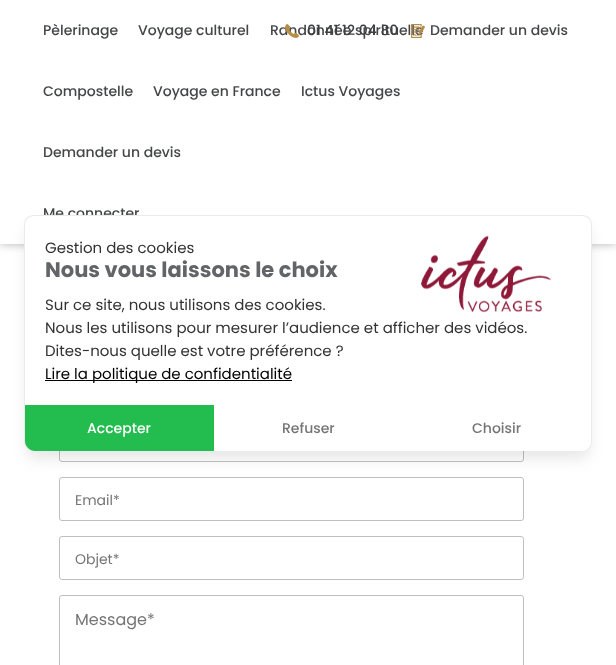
<svg xmlns="http://www.w3.org/2000/svg" width="616" height="665" viewBox="0 0 616 665">
  <rect width="100%" height="100%" fill="#fff"/>
  <path d="M0 0h616v244H0z" fill="#0000004d" filter="blur(5px)"/>
  <path d="M0 0h616v244H0z" fill="#fff"/>
  <rect x="59.5" y="418.5" width="464" height="43" rx="2.5" fill="none" stroke="#bdbfc1"/>
  <rect x="59.5" y="477.5" width="464" height="43" rx="2.5" fill="none" stroke="#bdbfc1"/>
  <rect x="27" y="228" width="562" height="230" rx="7" fill="#0000001a" filter="blur(7.5px)"/>
  <rect x="59.5" y="536.5" width="464" height="43" rx="2.5" fill="none" stroke="#bdbfc1"/>
  <rect x="59.5" y="595.5" width="464" height="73" rx="2.5" fill="none" stroke="#bdbfc1"/>
  <g font-family="Poppins" font-size="14" font-weight="500" fill="#444647">
    <text x="43" y="35">Pèlerinage</text>
    <text x="138" y="35">Voyage culturel</text>
    <text x="270" y="35">Randonnée spirituelle</text>
    <text x="43" y="96">Compostelle</text>
    <text x="153" y="96">Voyage en France</text>
    <text x="301" y="96">Ictus Voyages</text>
    <text x="43" y="157">Demander un devis</text>
    <text x="43" y="218">Me connecter</text>
  </g>
  <image x="285" y="24" width="14" height="14" href="img/1.png"/>
  <text x="307" y="35" font-family="Poppins" font-size="14" font-weight="500" fill="#3d3f41">01 41 12 04 80</text>
  <image x="411" y="24" width="14" height="14" href="img/2.png"/>
  <text x="430" y="35" font-family="Poppins" font-size="14" font-weight="500" fill="#444647">Demander un devis</text>
  <rect x="24" y="215" width="568" height="236" rx="10" fill="#fff"/>
  <path d="M34 215H582C588 215 592 219 592 225V441C592 447 588 451 582 451H34C28 451 24 447 24 441V225C24 219 28 215 34 215ZM34 216H582C587 216 591 220 591 225V441C591 447 587 451 582 451H34C29 451 25 447 25 441V225C25 220 29 216 34 216Z" fill="#00000014" fill-rule="evenodd"/>
  <image x="421" y="235" width="130" height="78" href="img/3.png"/>
  <text x="45" y="253" font-family="Poppins" font-size="15" fill="#333">Gestion des cookies</text>
  <text x="45" y="277" font-family="Poppins" font-size="21" font-weight="bold" fill="#626568">Nous vous laissons le choix</text>
  <g font-family="Poppins" font-size="15" fill="#333">
    <text x="45" y="310">Sur ce site, nous utilisons des cookies.</text>
    <text x="45" y="333">Nous les utilisons pour mesurer l’audience et afficher des vidéos.</text>
    <text x="45" y="356">Dites-nous quelle est votre préférence ?</text>
  </g>
  <path d="M45 380h247v1H45z" fill="#000"/>
  <text x="45" y="379" font-family="Poppins" font-size="15" fill="#000">Lire la politique de confidentialité</text>
  <path d="M25 405H214V451H35C29.5 451 25 446.5 25 441Z" fill="#23bc4e"/>
  <text x="87" y="433" font-family="Poppins" font-size="14" font-weight="500" fill="#fff">Accepter</text>
  <text x="282" y="433" font-family="Poppins" font-size="14" font-weight="500" fill="#757575">Refuser</text>
  <path d="M402 405H591V441C591 446.5 586.5 451 581 451H412C406.5 451 402 446.5 402 441Z" fill="#fff"/>
  <text x="472" y="433" font-family="Poppins" font-size="14" font-weight="500" fill="#757575">Choisir</text>
  <g font-family="Poppins" font-size="14" fill="#757575">
    <text x="75" y="505">Email*</text>
    <text x="75" y="564">Objet*</text>
  </g>
  <text x="75" y="625" font-family="Poppins" font-size="16" fill="#757575">Message*</text>
</svg>
